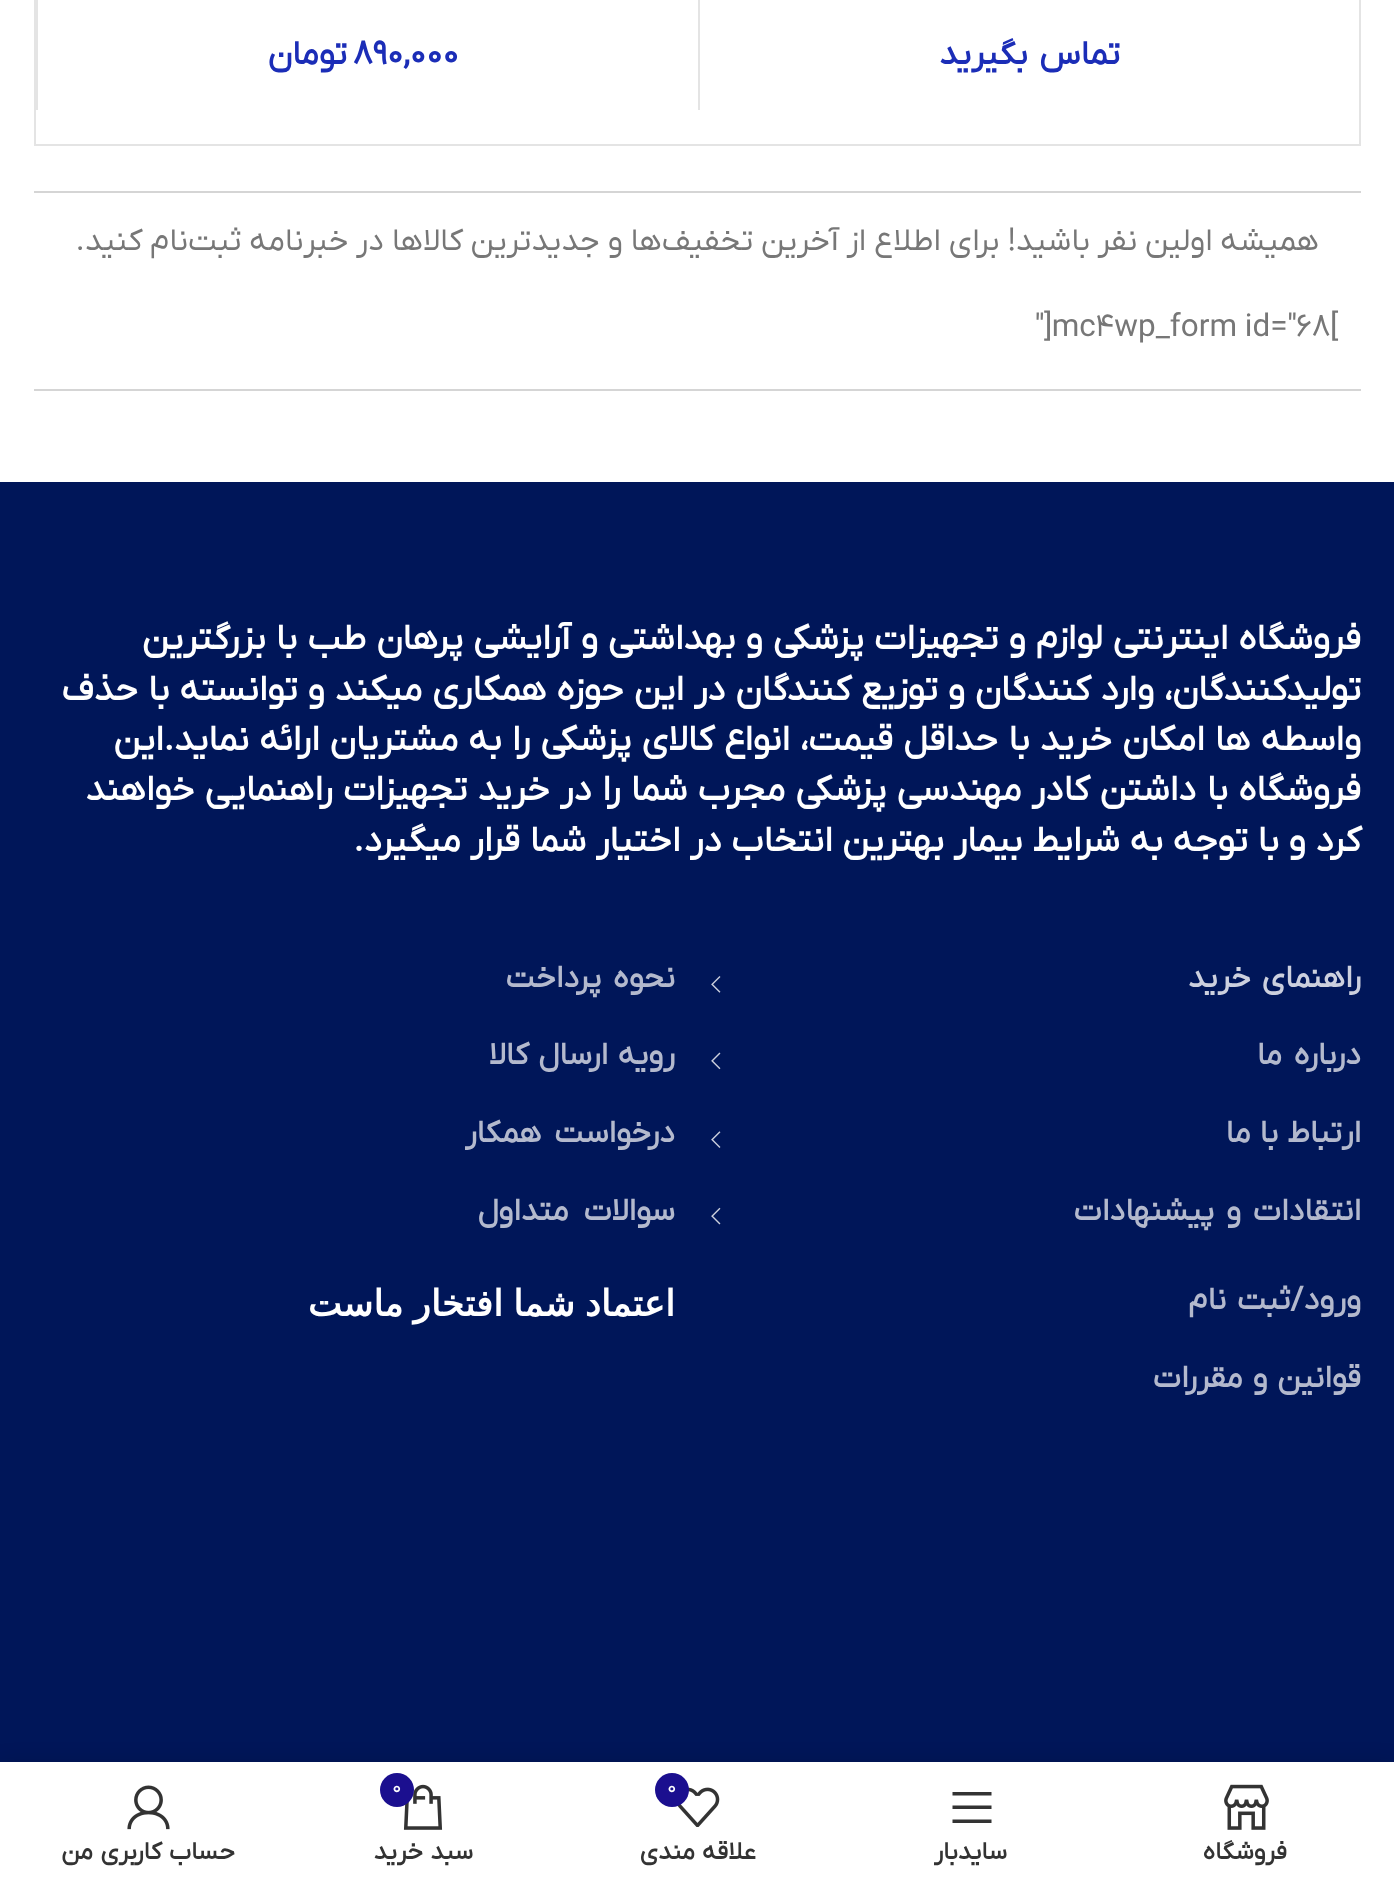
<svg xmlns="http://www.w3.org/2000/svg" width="1394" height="1885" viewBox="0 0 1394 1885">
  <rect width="100%" height="100%" fill="#fff"/>
  <path d="M35 -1h1325v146H35z" fill="none" stroke="#e4e4e4" stroke-width="2"/>
  <path d="M698 0h2v110H698z" fill="#e4e4e4"/>
  <path d="M36 0h2v110H36z" fill="#e4e4e4"/>
  <path d="M34 191h1327v2H34z" fill="#d5d5d5"/>
  <path d="M34 389h1327v2H34z" fill="#d5d5d5"/>
  <path d="M0 482h1394v1280H0z" fill="#001659"/>
  <image x="711" y="976" width="10" height="17" href="img/1.png"/>
  <image x="711" y="1052" width="10" height="18" href="img/2.png"/>
  <image x="711" y="1131" width="10" height="17" href="img/3.png"/>
  <image x="711" y="1207" width="10" height="18" href="img/4.png"/>
  <path d="M0 1762h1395v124H0z" fill="#0000001f" filter="blur(10px)"/>
  <path d="M0 1762h1394v123H0z" fill="#fff"/>
  <image x="1224" y="1784" width="45" height="46" href="img/5.png"/>
  <path d="M952.5 1795.5H991.5V1792H952.5ZM952.5 1809H991.5V1805.5H952.5ZM952.5 1823H991.5V1819.5H952.5Z" fill="#333"/>
  <image x="677" y="1787" width="43" height="40" href="img/6.png"/>
  <circle cx="672" cy="1790" r="17" fill="#1b0f8f"/>
  <image x="403" y="1784" width="40" height="46" href="img/7.png"/>
  <circle cx="397" cy="1790" r="17" fill="#1b0f8f"/>
  <image x="127" y="1785" width="43" height="45" href="img/8.png"/>
  <text x="1120" y="64" word-spacing="3" font-family="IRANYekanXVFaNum" font-size="33.75" font-weight="bold" direction="rtl" fill="#1b2db7">تماس بگیرید</text>
  <text x="353" y="64" font-family="IRANYekanXVFaNum" font-size="33.75" font-weight="bold" fill="#1b2db7">890,000</text>
  <text x="347" y="64" font-family="IRANYekanXVFaNum" font-size="33.75" font-weight="bold" direction="rtl" fill="#1b2db7">تومان</text>
  <text x="1319" y="250" font-family="IRANYekanXVFaNum" font-size="31.5" direction="rtl" fill="#777">همیشه اولین نفر باشید! برای اطلاع از آخرین تخفیف‌ها و جدیدترین کالاها در خبرنامه ثبت‌نام کنید.</text>
  <text x="1035" y="336" font-family="IRANYekanXVFaNum" font-size="31.5" fill="#777">"]mc4wp_form id="68[</text>
  <g font-family="IRANYekanXVFaNum" font-size="36" font-weight="bold" direction="rtl" fill="#fff">
    <text x="1361" y="649" word-spacing="1.25">فروشگاه اینترنتی لوازم و تجهیزات پزشکی و بهداشتی و آرایشی پرهان طب با بزرگترین</text>
    <text x="1361" y="700" word-spacing="1.1">تولیدکنندگان، وارد کنندگان و توزیع کنندگان در این حوزه همکاری میکند و توانسته با حذف</text>
    <text x="1361" y="750" word-spacing="1.25">واسطه ها امکان خرید با حداقل قیمت، انواع کالای پزشکی را به مشتریان ارائه نماید.این</text>
    <text x="1361" y="800" word-spacing="1.4">فروشگاه با داشتن کادر مهندسی پزشکی مجرب شما را در خرید تجهیزات راهنمایی خواهند</text>
    <text x="1361" y="851" word-spacing="0.75">کرد و با توجه به شرایط بیمار بهترین انتخاب در اختیار شما قرار میگیرد.</text>
  </g>
  <text x="1361" y="987" word-spacing="3" font-family="IRANYekanXVFaNum" font-size="31.5" font-weight="bold" direction="rtl" fill="#ccd0de">راهنمای خرید</text>
  <g font-family="IRANYekanXVFaNum" font-size="31.5" font-weight="bold" direction="rtl" fill="#b3b9cd">
    <text x="1361" y="1064" word-spacing="4">درباره ما</text>
    <text x="1361" y="1142" word-spacing="1">ارتباط با ما</text>
    <text x="1361" y="1220" word-spacing="4">انتقادات و پیشنهادات</text>
    <text x="675" y="987" word-spacing="4">نحوه پرداخت</text>
    <text x="675" y="1064" word-spacing="2">رویه ارسال کالا</text>
    <text x="675" y="1142" word-spacing="5">درخواست همکار</text>
    <text x="675" y="1220" word-spacing="7">سوالات متداول</text>
    <text x="1361" y="1309" word-spacing="3">ورود/ثبت نام</text>
    <text x="1361" y="1387" word-spacing="2">قوانین و مقررات</text>
  </g>
  <text x="675" y="1316" word-spacing="-1.5" font-family="DejaVu Sans" font-size="36" font-weight="bold" direction="rtl" fill="#fff">اعتماد شما افتخار ماست</text>
  <g font-family="IRANYekanXVFaNum" font-size="24.75" font-weight="bold" direction="rtl" fill="#333">
    <text x="1287" y="1859">فروشگاه</text>
    <text x="1007" y="1859">سایدبار</text>
  </g>
  <text x="667" y="1793" font-family="IRANYekanXVFaNum" font-size="20" fill="#fff">0</text>
  <text x="756" y="1859" word-spacing="1" font-family="IRANYekanXVFaNum" font-size="24.75" font-weight="bold" direction="rtl" fill="#333">علاقه مندی</text>
  <text x="392" y="1793" font-family="IRANYekanXVFaNum" font-size="20" fill="#fff">0</text>
  <g font-family="IRANYekanXVFaNum" font-size="24.75" font-weight="bold" direction="rtl" fill="#333">
    <text x="473" y="1859" word-spacing="1">سبد خرید</text>
    <text x="235" y="1859" word-spacing="1.25">حساب کاربری من</text>
  </g>
</svg>
